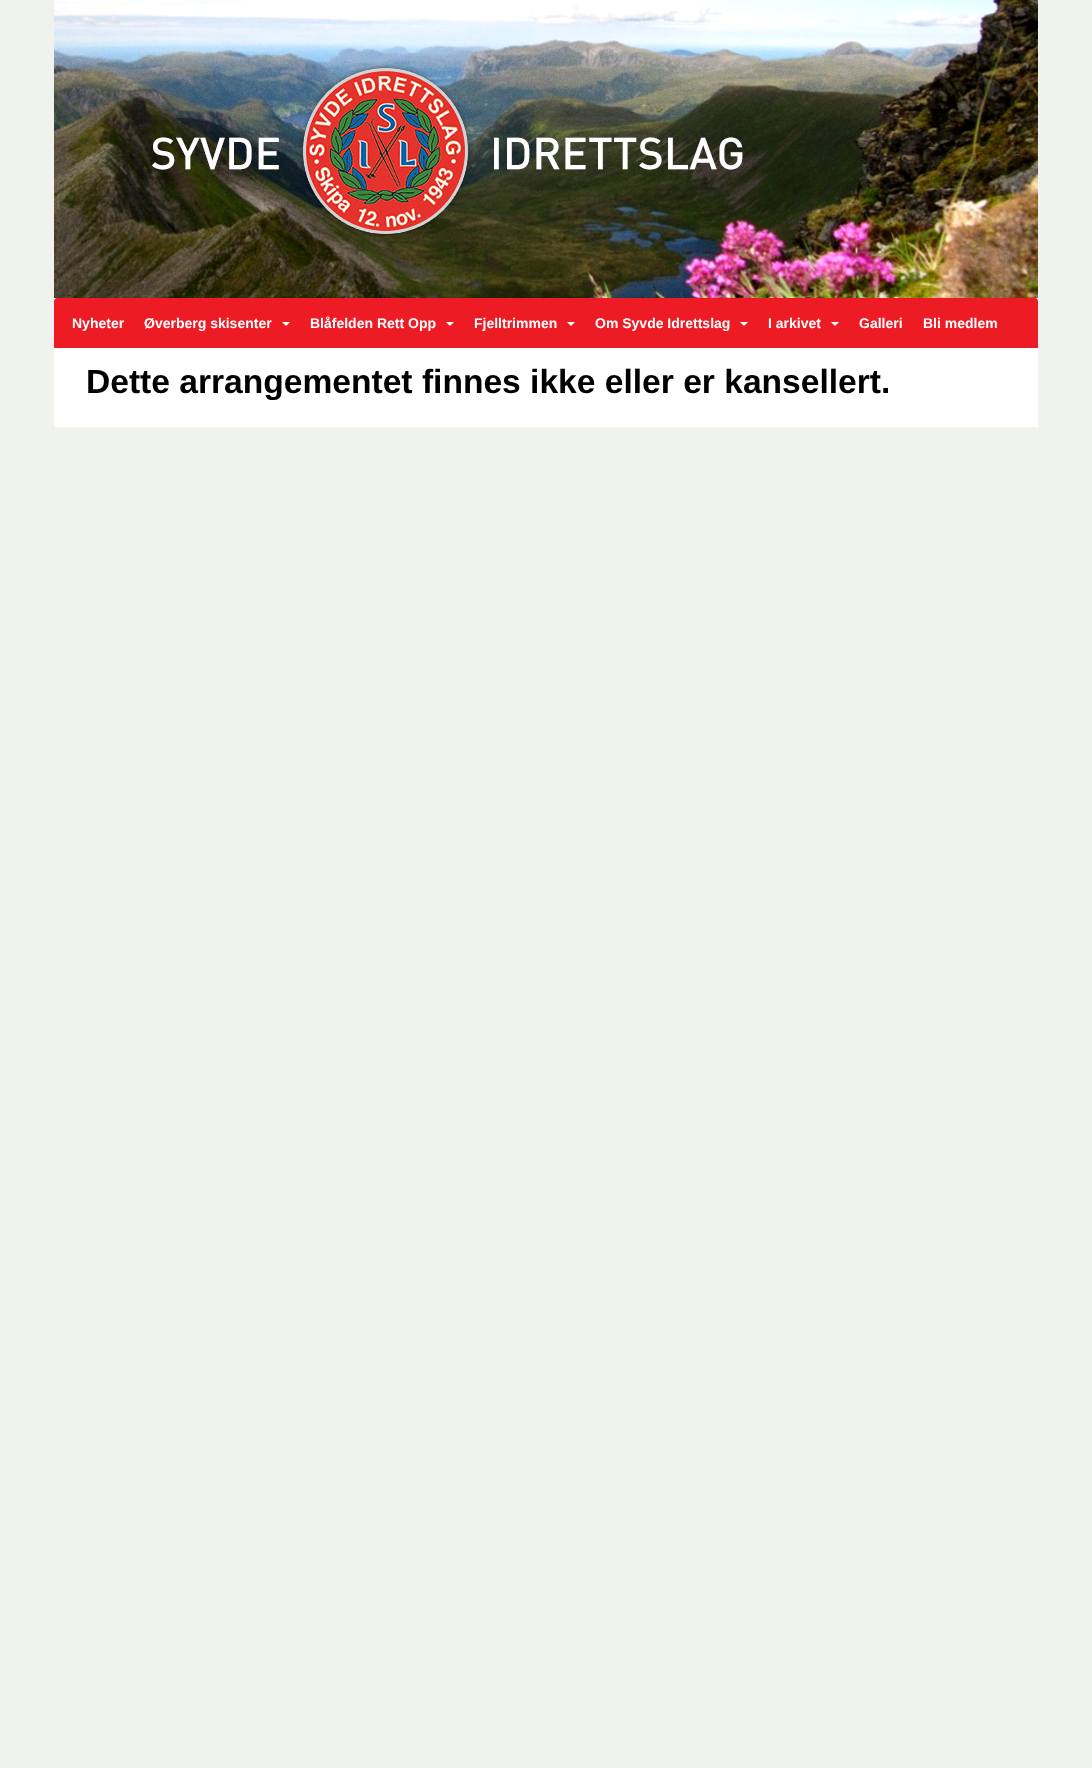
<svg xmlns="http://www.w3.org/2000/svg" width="1092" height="1768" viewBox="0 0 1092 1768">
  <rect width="100%" height="100%" fill="#f0f2ed"/>
  <image x="54" y="0" width="984" height="298" href="img/1.png"/>
  <path d="M57 298H1035C1036.5 298 1038 299.5 1038 301V348H54V301C54 299.5 55.5 298 57 298Z" fill="#ed1c24"/>
  <path d="M282 322H290L286 326Z" fill="#fff"/>
  <path d="M446 322H454L450 326Z" fill="#fff"/>
  <path d="M567 322H575L571 326Z" fill="#fff"/>
  <path d="M740 322H748L744 326Z" fill="#fff"/>
  <path d="M831 322H839L835 326Z" fill="#fff"/>
  <path d="M54 348h984v79H54z" fill="#fff"/>
  <g font-family="Liberation Sans" font-size="14" font-weight="bold" fill="#fff">
    <text x="72" y="328">Nyheter</text>
    <text x="144" y="328">Øverberg skisenter</text>
    <text x="310" y="328">Blåfelden Rett Opp</text>
    <text x="474" y="328">Fjelltrimmen</text>
    <text x="595" y="328">Om Syvde Idrettslag</text>
    <text x="768" y="328">I arkivet</text>
    <text x="859" y="328">Galleri</text>
    <text x="923" y="328">Bli medlem</text>
  </g>
  <text x="86" y="393" font-family="Liberation Sans" font-size="33.6" font-weight="bold" fill="#000">Dette arrangementet finnes ikke eller er kansellert.</text>
</svg>
